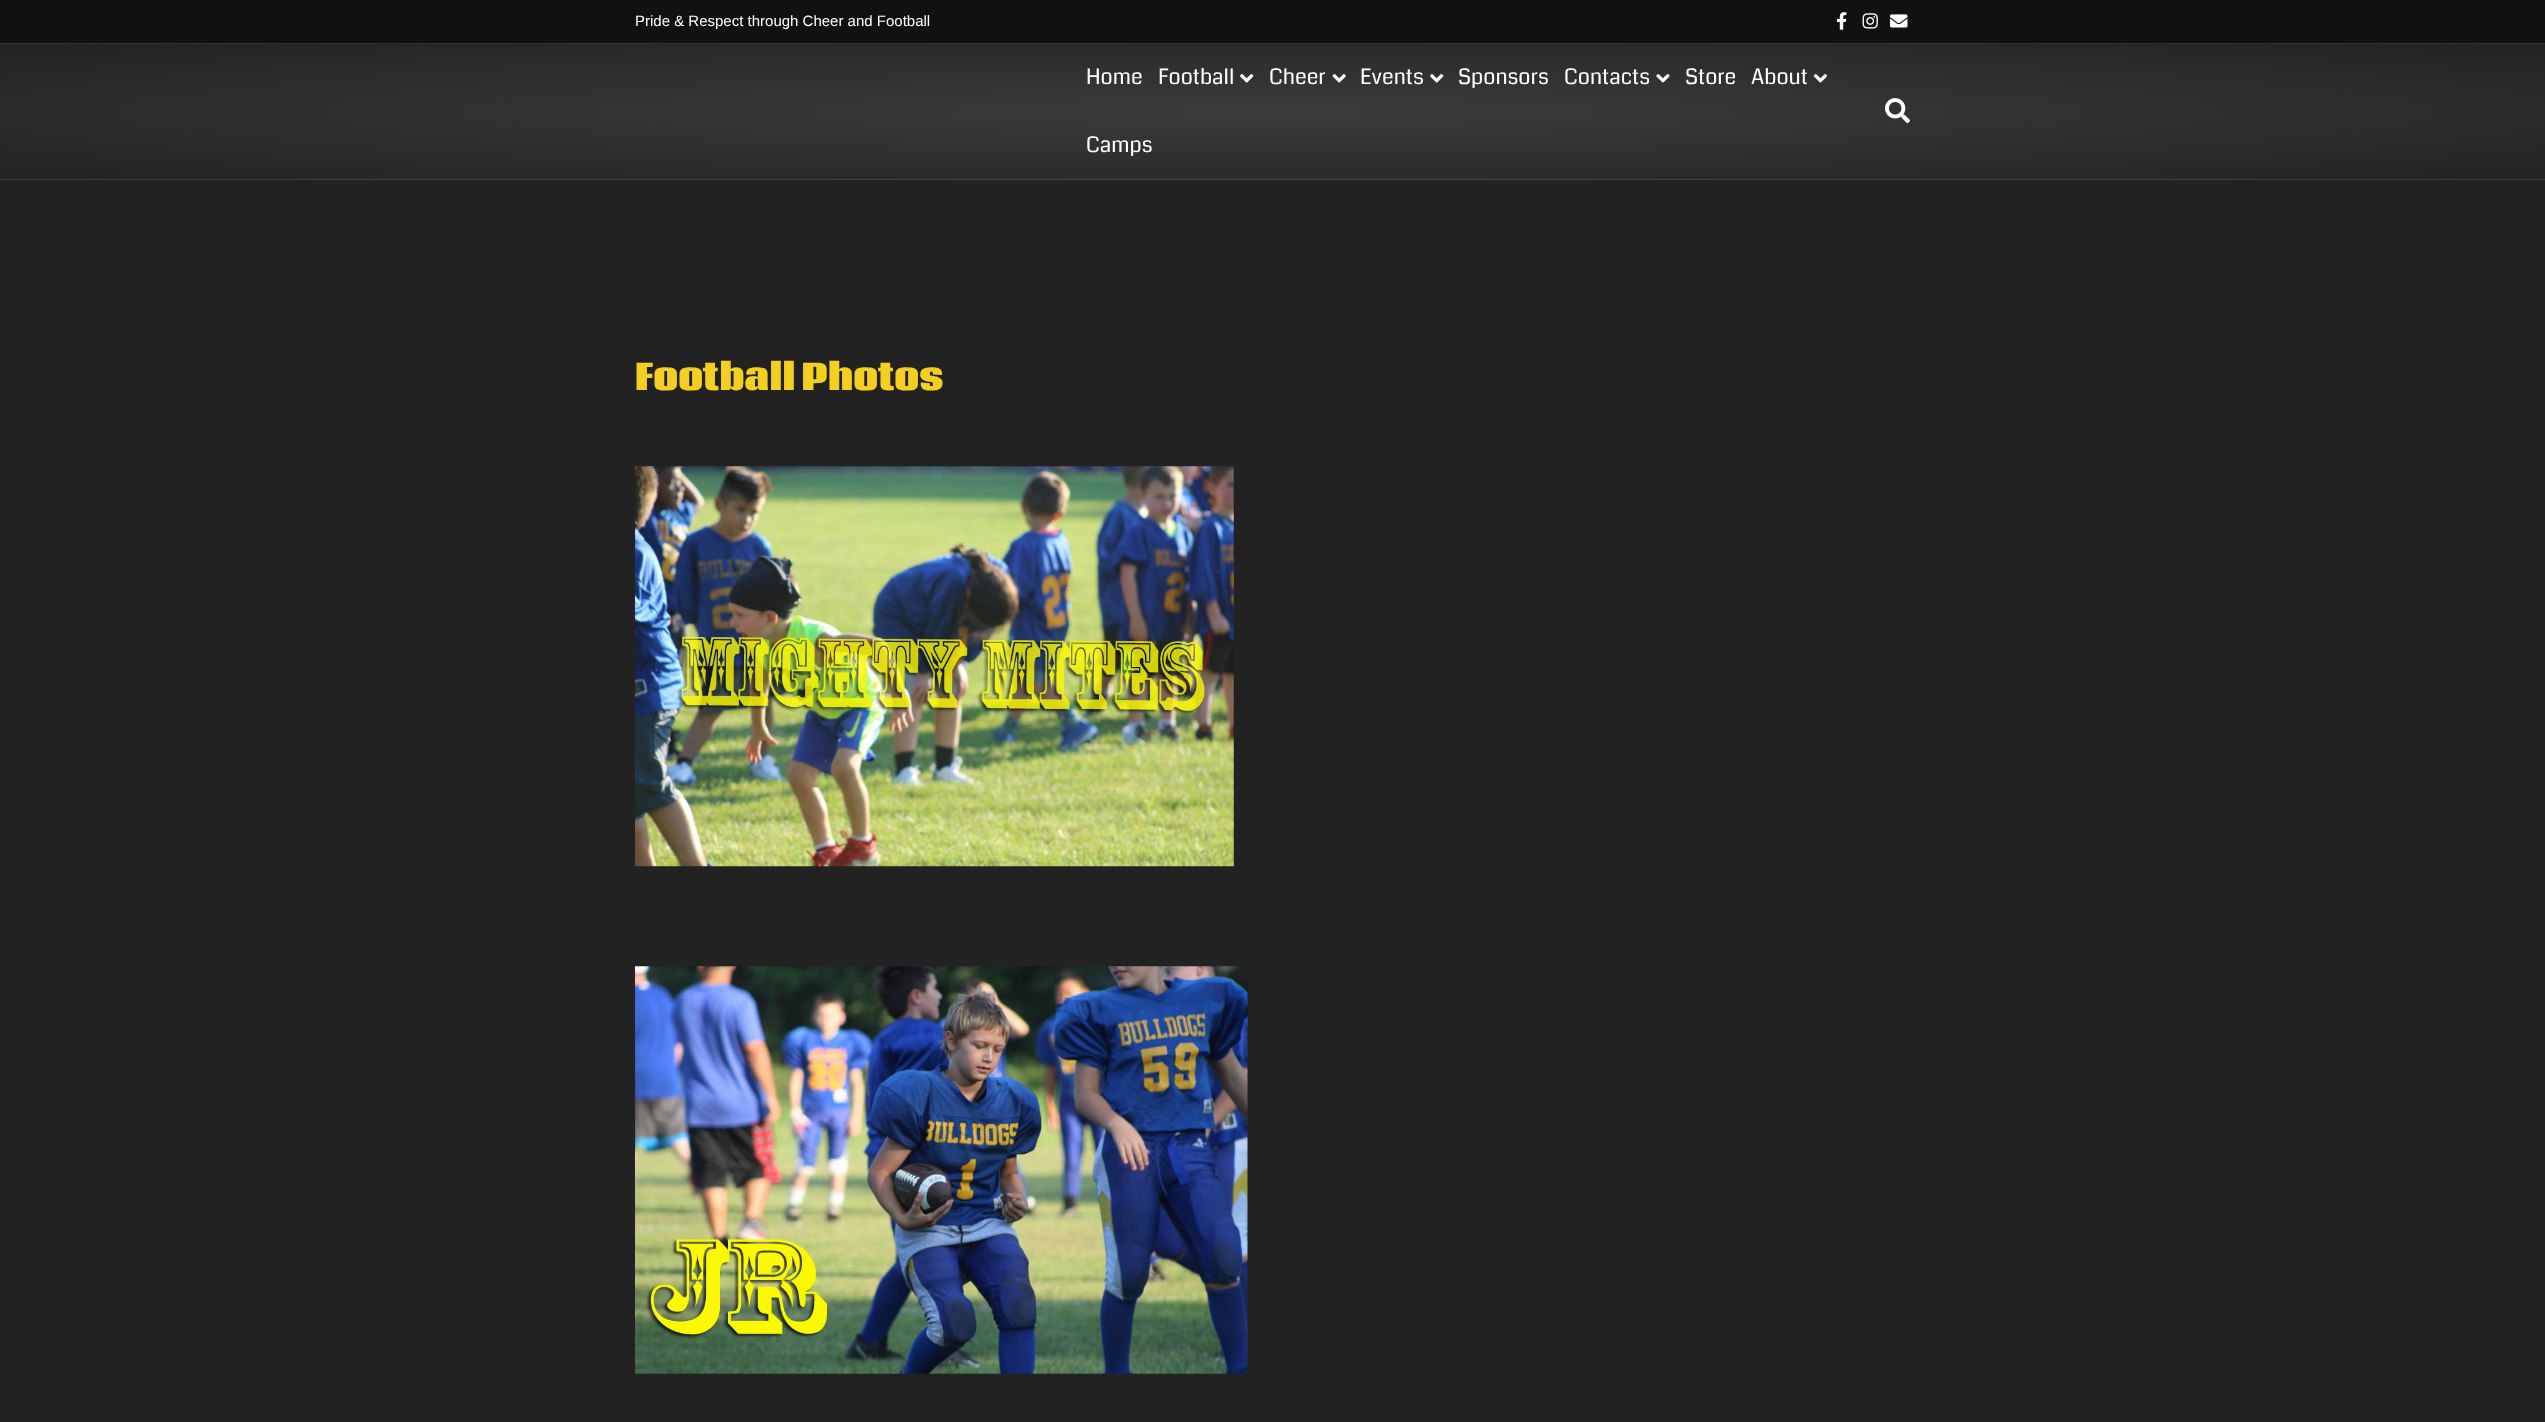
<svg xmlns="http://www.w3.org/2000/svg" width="2545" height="1422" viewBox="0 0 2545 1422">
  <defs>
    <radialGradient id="g1" gradientUnits="userSpaceOnUse" cx="0" cy="0" r="1" gradientTransform="matrix(1800 0 0 96 1273 112)"><stop offset="0" stop-color="#3c3c3c"/><stop offset="1" stop-color="#222"/></radialGradient>
    <radialGradient id="g2" gradientUnits="userSpaceOnUse" cx="0" cy="0" r="1" gradientTransform="matrix(1800 0 0 96 1273 112)"><stop offset="0" stop-color="#555"/><stop offset="1" stop-color="#3f3f3f"/></radialGradient>
  </defs>
  <rect width="100%" height="100%" fill="#111"/>
  <path d="M0 43h2545v1H0z" fill="#323232"/>
  <image x="1837" y="12" width="10" height="18" href="img/1.png"/>
  <image x="1862" y="13" width="16" height="16" href="img/2.png"/>
  <image x="1890" y="14" width="18" height="14" href="img/3.png"/>
  <path d="M0 44h2545v135H0z" fill="url(#g1)"/>
  <path d="M0 179h2545v1H0z" fill="url(#g2)"/>
  <image x="1240" y="74" width="14" height="9" href="img/4.png"/>
  <image x="1332" y="74" width="14" height="9" href="img/5.png"/>
  <image x="1430" y="74" width="14" height="9" href="img/6.png"/>
  <image x="1656" y="74" width="14" height="9" href="img/7.png"/>
  <image x="1813" y="74" width="14" height="9" href="img/8.png"/>
  <image x="1885" y="98" width="25" height="26" href="img/9.png"/>
  <path d="M0 180h2545v1242H0z" fill="#222"/>
  <image x="635" y="466" width="599" height="401" href="img/10.png"/>
  <image x="635" y="966" width="613" height="408" href="img/11.png"/>
  <text x="635" y="26" font-family="Liberation Sans" font-size="15" fill="#fff">Pride &amp; Respect through Cheer and Football</text>
  <g font-family="Coda" font-size="21.25" fill="#fff">
    <text x="1086" y="84">Home</text>
    <text x="1158" y="84">Football</text>
    <text x="1269" y="84">Cheer</text>
    <text x="1360" y="84">Events</text>
    <text x="1458" y="84">Sponsors</text>
    <text x="1564" y="84">Contacts</text>
    <text x="1685" y="84">Store</text>
    <text x="1751" y="84">About</text>
    <text x="1086" y="152">Camps</text>
  </g>
  <text x="635" y="390" font-family="Coda" font-size="35" font-weight="800" fill="#f2cf21">Football Photos</text>
</svg>
